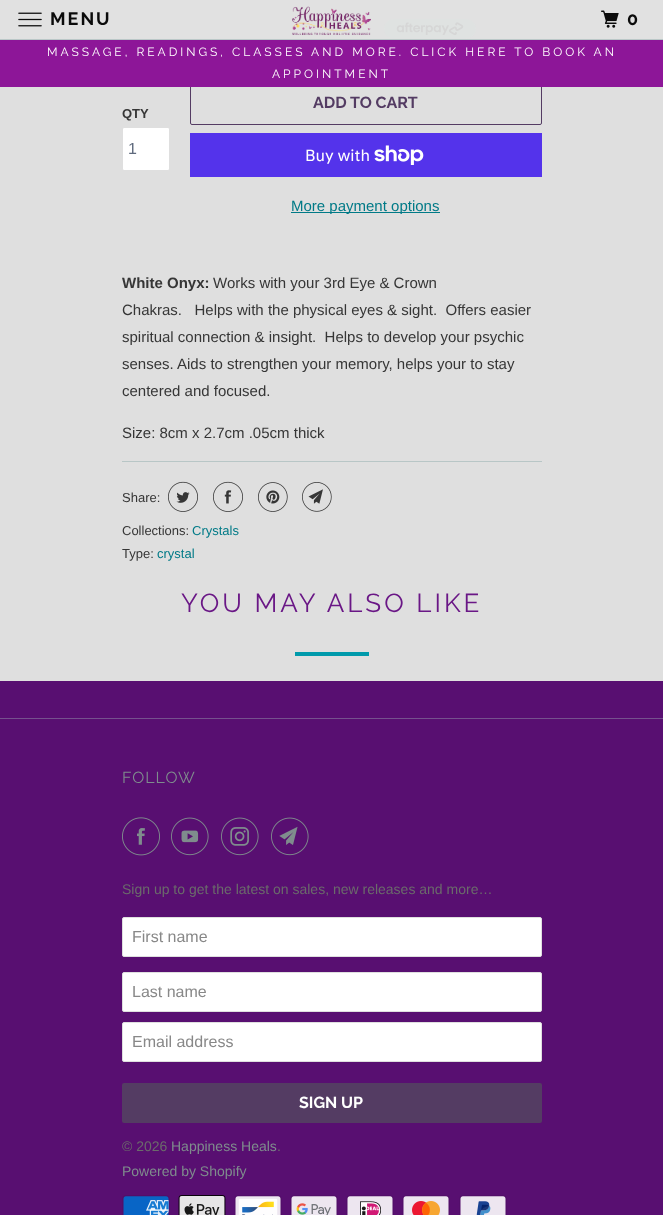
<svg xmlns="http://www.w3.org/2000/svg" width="663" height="1215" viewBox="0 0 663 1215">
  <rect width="100%" height="100%" fill="#580f71"/>
  <path d="M0 39h663v1H0z" fill="#bac7c7"/>
  <path d="M0 0h663v39H0z" fill="#e1e1e1"/>
  <image x="18" y="12" width="24" height="15" href="img/1.png"/>
  <image x="292" y="6" width="79" height="29" href="img/2.png"/>
  <image x="601" y="10" width="18" height="18" href="img/3.png"/>
  <path d="M0 87h663v594H0z" fill="#dfdfdf"/>
  <rect x="190.5" y="81.5" width="351" height="43" rx="1.5" fill="none" stroke="#543c63"/>
  <path d="M0 40h663v47H0z" fill="#8d1698"/>
  <image x="384" y="19" width="92" height="20" href="img/4.png"/>
  <rect x="122.5" y="127.5" width="47" height="43" rx="1.5" fill="#fff" stroke="#dfdfdf"/>
  <path d="M190 133h352v44H190z" fill="#5433eb"/>
  <image x="374" y="145" width="50" height="20" href="img/5.png"/>
  <path d="M291 212h149v1H291z" fill="#007a87"/>
  <path d="M122 461h420v1H122z" fill="#b8c6c6"/>
  <image x="168" y="481" width="30" height="31" href="img/6.png"/>
  <image x="213" y="481" width="30" height="31" href="img/7.png"/>
  <image x="258" y="482" width="30" height="30" href="img/8.png"/>
  <image x="302" y="482" width="30" height="30" href="img/9.png"/>
  <path d="M295 652h74v4H295z" fill="#009aab"/>
  <path d="M0 718h663v1H0z" fill="#75518e"/>
  <image x="122" y="817" width="38" height="39" href="img/10.png"/>
  <image x="171" y="817" width="38" height="39" href="img/11.png"/>
  <image x="221" y="817" width="38" height="39" href="img/12.png"/>
  <image x="271" y="817" width="38" height="39" href="img/13.png"/>
  <rect x="122.5" y="917.5" width="419" height="39" rx="1.5" fill="#fff" stroke="#dfdfdf"/>
  <rect x="122.5" y="972.5" width="419" height="39" rx="1.5" fill="#fff" stroke="#dfdfdf"/>
  <rect x="122.5" y="1022.5" width="419" height="39" rx="1.5" fill="#fff" stroke="#dfdfdf"/>
  <rect x="122" y="1083" width="420" height="40" rx="2" fill="#543c63"/>
  <image x="122" y="1195" width="48" height="20" href="img/14.png"/>
  <image x="178" y="1195" width="48" height="20" href="img/15.png"/>
  <image x="234" y="1195" width="48" height="20" href="img/16.png"/>
  <image x="290" y="1195" width="48" height="20" href="img/17.png"/>
  <image x="346" y="1195" width="48" height="20" href="img/18.png"/>
  <image x="402" y="1195" width="48" height="20" href="img/19.png"/>
  <image x="459" y="1195" width="48" height="20" href="img/20.png"/>
  <g font-family="Raleway" font-size="18" font-weight="bold" letter-spacing="2" fill="#0b0b0b">
    <text x="50" y="25">MENU</text>
    <text x="627" y="25">0</text>
  </g>
  <g font-family="Raleway" font-size="12" letter-spacing="3" fill="#fff">
    <text x="47" y="56">MASSAGE, READINGS, CLASSES AND MORE. CLICK HERE TO BOOK AN</text>
    <text x="272" y="78">APPOINTMENT</text>
  </g>
  <text x="122" y="118" font-family="Liberation Sans" font-size="13" font-weight="bold" fill="#363636">QTY</text>
  <text x="128" y="154" font-family="Liberation Sans" font-size="16" fill="#5f6a7d">1</text>
  <text x="313" y="108" font-family="Raleway" font-size="16" font-weight="bold" fill="#543c63">ADD TO CART</text>
  <text x="305" y="161" font-family="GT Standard" font-size="16" fill="#fff">Buy with</text>
  <text x="291" y="211" font-family="Liberation Sans" font-size="15" fill="#007a87">More payment options</text>
  <text x="122" y="288" font-family="Liberation Sans" font-size="15" font-weight="bold" fill="#363636">White Onyx:</text>
  <g font-family="Liberation Sans" font-size="15" fill="#363636">
    <text x="213" y="288">Works with your 3rd Eye &amp; Crown</text>
    <text x="122" y="315" xml:space="preserve">Chakras.   Helps with the physical eyes &amp; sight.  Offers easier</text>
    <text x="122" y="342" xml:space="preserve">spiritual connection &amp; insight.  Helps to develop your psychic</text>
    <text x="122" y="369">senses. Aids to strengthen your memory, helps your to stay</text>
    <text x="122" y="396">centered and focused.</text>
    <text x="122" y="438">Size: 8cm x 2.7cm .05cm thick</text>
  </g>
  <g font-family="Liberation Sans" font-size="13" fill="#363636">
    <text x="122" y="502">Share:</text>
    <text x="122" y="535">Collections:</text>
  </g>
  <text x="192" y="535" font-family="Liberation Sans" font-size="13" fill="#007a87">Crystals</text>
  <text x="122" y="558" font-family="Liberation Sans" font-size="13" fill="#363636">Type:</text>
  <text x="157" y="558" font-family="Liberation Sans" font-size="13" fill="#007a87">crystal</text>
  <text x="181" y="612" font-family="Raleway" font-size="26" letter-spacing="3" fill="#6a1786">YOU MAY ALSO LIKE</text>
  <text x="122" y="783" font-family="Raleway" font-size="16" letter-spacing="1" fill="#7f8c8d">FOLLOW</text>
  <text x="122" y="894" font-family="Liberation Sans" font-size="14" fill="#6b6b6b">Sign up to get the latest on sales, new releases and more…</text>
  <g font-family="Liberation Sans" font-size="16" fill="#888">
    <text x="132" y="942">First name</text>
    <text x="132" y="997">Last name</text>
    <text x="132" y="1047">Email address</text>
  </g>
  <text x="299" y="1108" font-family="Raleway" font-size="16" font-weight="bold" fill="#fff">SIGN UP</text>
  <text x="122" y="1151" font-family="Liberation Sans" font-size="14" fill="#6b6b6b">© 2026</text>
  <text x="171" y="1151" font-family="Liberation Sans" font-size="14" fill="#7f8c8d">Happiness Heals</text>
  <text x="277" y="1151" font-family="Liberation Sans" font-size="14" fill="#6b6b6b">.</text>
  <text x="122" y="1176" font-family="Liberation Sans" font-size="14" fill="#7f8c8d">Powered by Shopify</text>
</svg>
